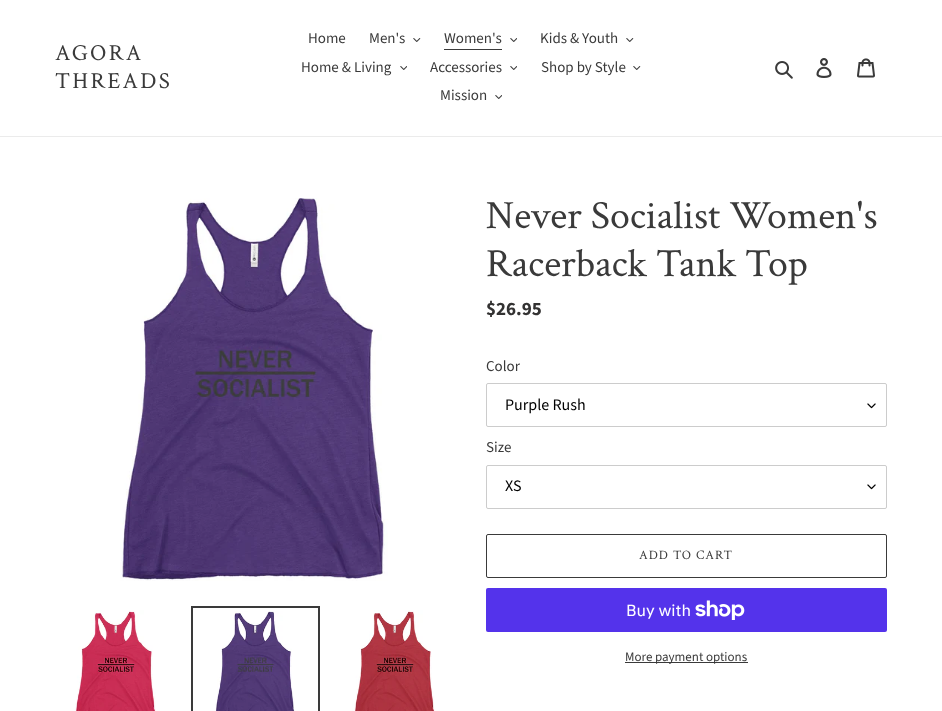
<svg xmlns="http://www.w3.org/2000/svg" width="942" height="711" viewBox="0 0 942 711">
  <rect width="100%" height="100%" fill="#fff"/>
  <path d="M0 136h942v1H0z" fill="#ebebeb"/>
  <image x="413" y="38" width="8" height="4" href="img/1.png"/>
  <path d="M444 49h58v1H444z" fill="#3a3a3a"/>
  <image x="510" y="38" width="7" height="4" href="img/2.png"/>
  <image x="626" y="38" width="8" height="4" href="img/1.png"/>
  <image x="400" y="66" width="7" height="4" href="img/2.png"/>
  <image x="510" y="66" width="7" height="4" href="img/2.png"/>
  <image x="633" y="66" width="8" height="4" href="img/1.png"/>
  <image x="495" y="95" width="7" height="4" href="img/2.png"/>
  <image x="775" y="61" width="18" height="18" href="img/3.png"/>
  <image x="816" y="58" width="16" height="20" href="img/4.png"/>
  <image x="857" y="58" width="18" height="20" href="img/5.png"/>
  <image x="120" y="198" width="268" height="383" href="img/6.png"/>
  <image x="75" y="610" width="81" height="101" href="img/7.png"/>
  <path d="M192 607h127v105H192z" fill="none" stroke="#3a3a3a" stroke-width="2"/>
  <image x="215" y="611" width="80" height="100" href="img/8.png"/>
  <image x="352" y="610" width="83" height="101" href="img/9.png"/>
  <image x="867" y="403" width="9" height="6" href="img/10.png"/>
  <rect x="486.5" y="383.5" width="400" height="43" rx="1.5" fill="none" stroke="#ccc"/>
  <image x="867" y="484" width="9" height="6" href="img/10.png"/>
  <rect x="486.5" y="465.5" width="400" height="43" rx="1.5" fill="none" stroke="#ccc"/>
  <rect x="486.5" y="534.5" width="400" height="43" rx="1.5" fill="none" stroke="#3a3a3a"/>
  <rect x="486" y="588" width="401" height="44" rx="2" fill="#5433eb"/>
  <image x="695" y="600" width="50" height="20" href="img/11.png"/>
  <path d="M625 662h123v1H625z" fill="#3a3a3a"/>
  <g font-family="Crimson Text" font-size="23" letter-spacing="2.25" fill="#3a3a3a">
    <text x="55" y="60">AGORA</text>
    <text x="55" y="88">THREADS</text>
  </g>
  <g font-family="Source Sans Pro" font-size="15" fill="#3a3a3a">
    <text x="308" y="43">Home</text>
    <text x="369" y="43">Men's</text>
    <text x="444" y="43">Women's</text>
    <text x="540" y="43">Kids &amp; Youth</text>
    <text x="301" y="72">Home &amp; Living</text>
    <text x="430" y="72">Accessories</text>
    <text x="541" y="72">Shop by Style</text>
    <text x="440" y="100">Mission</text>
  </g>
  <g font-family="Crimson Text" font-size="40" fill="#3a3a3a">
    <text x="486" y="228">Never Socialist Women's</text>
    <text x="486" y="276">Racerback Tank Top</text>
  </g>
  <text x="486" y="315" font-family="Source Sans Pro" font-size="19" font-weight="bold" fill="#333232">$26.95</text>
  <text x="486" y="371" font-family="Source Sans Pro" font-size="15" fill="#3a3a3a">Color</text>
  <text x="505" y="410" font-family="Source Sans Pro" font-size="16" fill="#000">Purple Rush</text>
  <text x="486" y="452" font-family="Source Sans Pro" font-size="15" fill="#3a3a3a">Size</text>
  <text x="505" y="491" font-family="Source Sans Pro" font-size="16" fill="#000">XS</text>
  <text x="639" y="559" font-family="Crimson Text" font-size="13" letter-spacing="1" fill="#3a3a3a">ADD TO CART</text>
  <text x="626" y="616" font-family="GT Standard" font-size="16" fill="#fff">Buy with</text>
  <text x="625" y="661" font-family="Source Sans Pro" font-size="13" fill="#3a3a3a">More payment options</text>
</svg>
